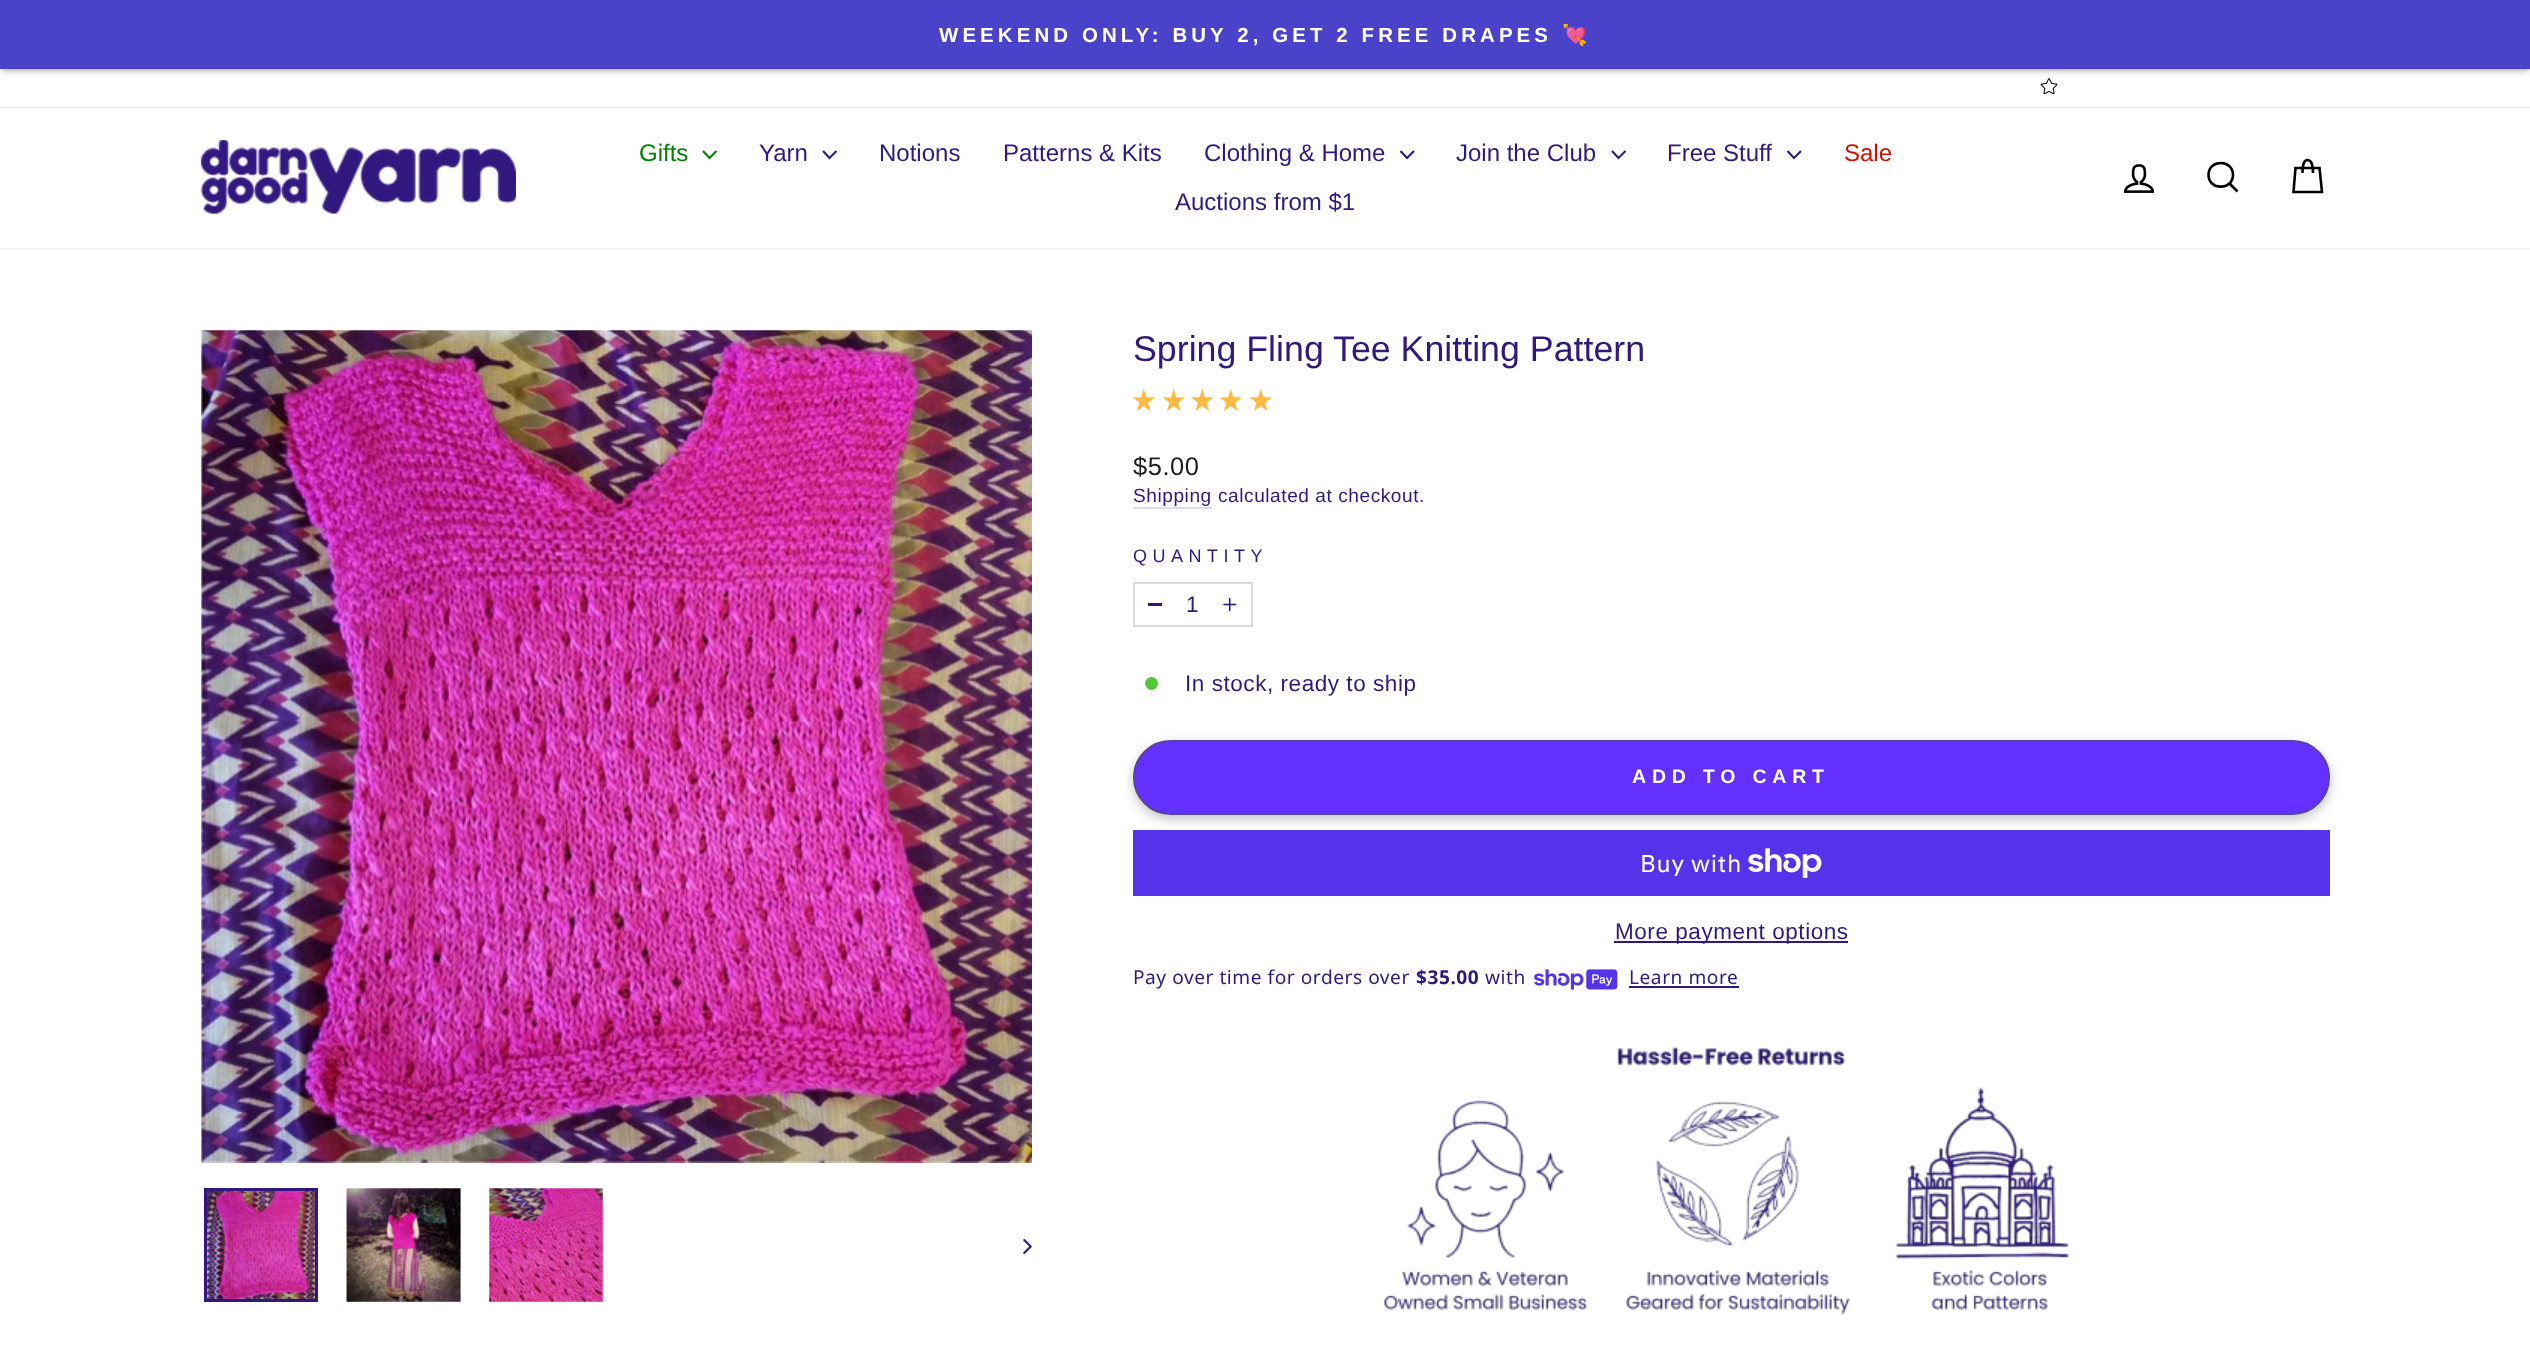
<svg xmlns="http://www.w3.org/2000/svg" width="2530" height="1356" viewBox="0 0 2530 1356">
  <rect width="100%" height="100%" fill="#fff"/>
  <path d="M2 3h2527v66H2z" fill="#0000004d" filter="blur(2px)"/>
  <image x="2040" y="78" width="18" height="17" href="img/1.png"/>
  <path d="M2 5h2527v66H2z" fill="#31315d40" filter="blur(4px)"/>
  <path d="M0 0h2530v69H0z" fill="#4a42c9"/>
  <path d="M0 108h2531v140H0z" fill="#00000033" filter="blur(1px)"/>
  <path d="M0 108h2530v140H0z" fill="#fff"/>
  <image x="200" y="140" width="316" height="74" href="img/2.png"/>
  <path d="M703 151L709.5 158L716.5 151" fill="none" stroke="#008000" stroke-width="2.1"/>
  <path d="M823 151L829.5 158L836.5 151" fill="none" stroke="#31187f" stroke-width="2.1"/>
  <path d="M1400.5 151L1407 158L1414 151" fill="none" stroke="#31187f" stroke-width="2.1"/>
  <path d="M1612 151L1618.5 158L1625.5 151" fill="none" stroke="#31187f" stroke-width="2.1"/>
  <path d="M1787.5 151L1794 158L1801 151" fill="none" stroke="#31187f" stroke-width="2.1"/>
  <image x="2123" y="164" width="32" height="29" href="img/3.png"/>
  <path d="M2233 175C2233 190.5 2208.5 190.5 2208.5 175C2208.5 159 2233 159 2233 175ZM2237.5 191.5L2229.5 183.5" fill="none" stroke="#000" stroke-width="2.6"/>
  <path d="M2302.5 173C2302.5 162.5 2304.5 160 2307.5 160C2310.5 160 2313 162.5 2313 173M2295.5 168H2319.5L2322 192H2293.5Z" fill="none" stroke="#000" stroke-width="2.6"/>
  <image x="201" y="330" width="831" height="833" href="img/4.png"/>
  <image x="207" y="1191" width="108" height="108" href="img/5.png"/>
  <path d="M205.5 1189.5h111v111H205.5z" fill="none" stroke="#31187f" stroke-width="3"/>
  <image x="346" y="1188" width="115" height="114" href="img/6.png"/>
  <image x="489" y="1188" width="114" height="114" href="img/7.png"/>
  <image x="1023" y="1239" width="9" height="15" href="img/8.png"/>
  <image x="1132" y="389" width="23" height="23" href="img/9.png"/>
  <image x="1162" y="389" width="23" height="23" href="img/9.png"/>
  <image x="1191" y="389" width="23" height="23" href="img/10.png"/>
  <image x="1219" y="389" width="23" height="23" href="img/9.png"/>
  <image x="1249" y="389" width="23" height="23" href="img/9.png"/>
  <path d="M1133 507h79v2H1133z" fill="#e0dcec"/>
  <path d="M1134 583h118v43H1134z" fill="none" stroke="#dadada" stroke-width="2"/>
  <path d="M1148 603h14v3H1148z" fill="#31187f"/>
  <image x="1223" y="598" width="14" height="13" href="img/11.png"/>
  <circle cx="1151.5" cy="683.5" r="6.5" fill="#54c63a"/>
  <rect x="1133" y="744" width="1197" height="75" rx="37.5" fill="#0000003d" filter="blur(6px)"/>
  <rect x="1134" y="741" width="1195" height="73" rx="36.5" fill="#6430ff" stroke="#5544a0" stroke-width="2"/>
  <path d="M1133 830h1197v66H1133z" fill="#5433eb"/>
  <image x="1748" y="848" width="74" height="30" href="img/12.png"/>
  <path d="M1614 941h234v2H1614z" fill="#31187f"/>
  <image x="1534" y="969" width="84" height="21" href="img/13.png"/>
  <path d="M1629 986h110v2H1629z" fill="#31187f"/>
  <image x="1384" y="1046" width="685" height="269" href="img/14.png"/>
  <text x="939" y="42" font-family="Liberation Sans" font-size="20.45" font-weight="bold" letter-spacing="4.1" fill="#fff">WEEKEND ONLY: BUY 2, GET 2 FREE DRAPES</text>
  <text x="1562" y="42" font-family="Noto Color Emoji" font-size="20.45" font-weight="bold" letter-spacing="4.1" fill="#fff">💘</text>
  <text x="639" y="161" font-family="Liberation Sans" font-size="24" fill="#008000">Gifts</text>
  <g font-family="Liberation Sans" font-size="24" fill="#31187f">
    <text x="759" y="161">Yarn</text>
    <text x="879" y="161">Notions</text>
    <text x="1003" y="161">Patterns &amp; Kits</text>
    <text x="1204" y="161">Clothing &amp; Home</text>
    <text x="1456" y="161">Join the Club</text>
    <text x="1667" y="161">Free Stuff</text>
  </g>
  <text x="1844" y="161" font-family="Liberation Sans" font-size="24" fill="#cf1200">Sale</text>
  <text x="1175" y="210" font-family="Liberation Sans" font-size="24" fill="#31187f">Auctions from $1</text>
  <text x="1133" y="361" font-family="Liberation Sans" font-size="35.75" fill="#31187f">Spring Fling Tee Knitting Pattern</text>
  <text x="1133" y="475" font-family="Liberation Sans" font-size="25.5" letter-spacing="0.55" fill="#1c1d1d">$5.00</text>
  <g font-family="Liberation Sans" font-size="19.1" letter-spacing="0.55" fill="#31187f">
    <text x="1133" y="502">Shipping</text>
    <text x="1218" y="502">calculated at checkout.</text>
  </g>
  <text x="1133" y="562" font-family="Liberation Sans" font-size="18" letter-spacing="5.5" fill="#31187f">QUANTITY</text>
  <g font-family="Liberation Sans" font-size="22.5" letter-spacing="0.55" fill="#31187f">
    <text x="1186" y="612">1</text>
    <text x="1185" y="691">In stock, ready to ship</text>
  </g>
  <text x="1632" y="783" font-family="Liberation Sans" font-size="19.5" font-weight="bold" letter-spacing="5.8" fill="#fff">ADD TO CART</text>
  <text x="1640" y="872" font-family="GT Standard" font-size="24" letter-spacing="0.55" fill="#fff">Buy with</text>
  <text x="1615" y="939" font-family="Liberation Sans" font-size="22.5" letter-spacing="0.55" fill="#31187f">More payment options</text>
  <text x="1133" y="984" font-family="Noto Sans" font-size="19.1" letter-spacing="0.55" fill="#31187f">Pay over time for orders over</text>
  <text x="1416" y="984" font-family="Noto Sans" font-size="19.1" font-weight="bold" letter-spacing="0.55" fill="#31187f">$35.00</text>
  <g font-family="Noto Sans" font-size="19.1" letter-spacing="0.55" fill="#31187f">
    <text x="1485" y="984">with</text>
    <text x="1629" y="984">Learn more</text>
  </g>
</svg>
